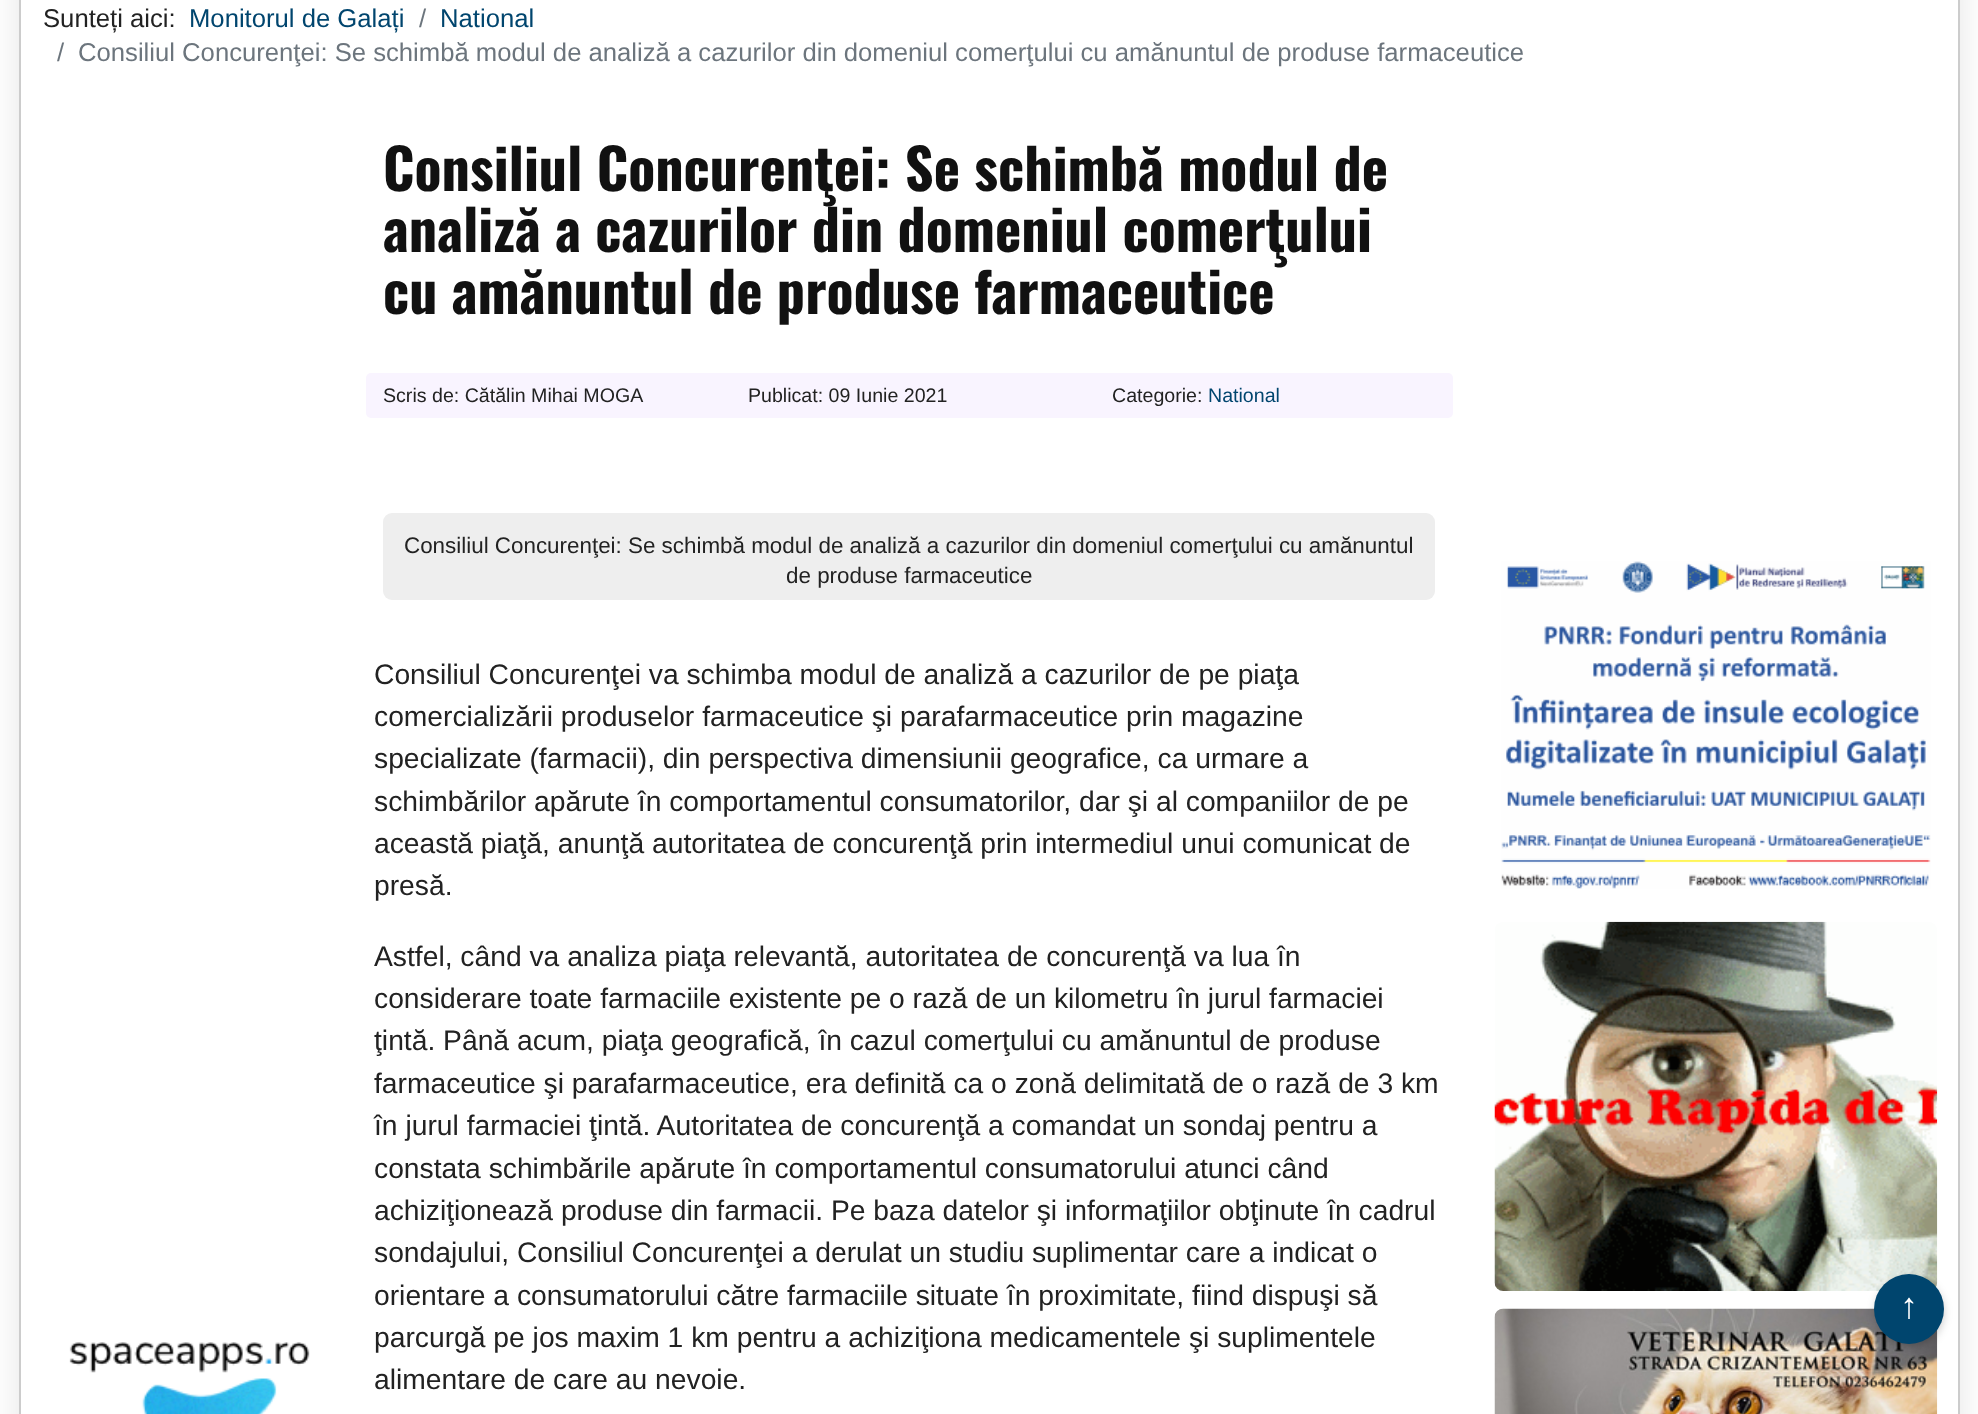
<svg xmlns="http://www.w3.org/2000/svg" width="1978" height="1414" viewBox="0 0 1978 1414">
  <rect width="100%" height="100%" fill="#fff"/>
  <rect x="19" y="-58" width="1941" height="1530" rx="5" fill="#0000001a" filter="blur(17.5px)"/>
  <path d="M20 -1h1939v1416H20z" fill="#fff" stroke="#ccc" stroke-width="2"/>
  <image x="69" y="1342" width="241" height="72" href="img/1.png"/>
  <rect x="366" y="373" width="1087" height="45" rx="5" fill="#f9f4ff"/>
  <rect x="383" y="513" width="1052" height="87" rx="9" fill="#eee"/>
  <image x="1501" y="561" width="430" height="328" href="img/2.png"/>
  <image x="1494" y="921" width="444" height="370" href="img/3.png"/>
  <image x="1494" y="1308" width="444" height="106" href="img/4.png"/>
  <rect x="1876" y="1279" width="67" height="67" rx="33.5" fill="#00000040" filter="blur(5px)"/>
  <circle cx="1909" cy="1309" r="35" fill="#00456e"/>
  <text x="43" y="27" font-family="Liberation Sans" font-size="25.67" fill="#222">Sunteți aici:</text>
  <text x="189" y="27" font-family="Liberation Sans" font-size="25.67" fill="#00456e">Monitorul de Galați</text>
  <text x="419" y="27" font-family="Liberation Sans" font-size="25.67" fill="#6c757d">/</text>
  <text x="440" y="27" font-family="Liberation Sans" font-size="25.67" fill="#00456e">National</text>
  <g font-family="Liberation Sans" font-size="25.67" fill="#6c757d">
    <text x="57" y="61">/</text>
    <text x="78" y="61">Consiliul Concurenţei: Se schimbă modul de analiză a cazurilor din domeniul comerţului cu amănuntul de produse farmaceutice</text>
  </g>
  <g font-family="Oswald" font-size="56" font-weight="bold" fill="#111">
    <text x="383" y="191">Consiliul Concurenţei: Se schimbă modul de</text>
    <text x="383" y="252">analiză a cazurilor din domeniul comerţului</text>
    <text x="383" y="314">cu amănuntul de produse farmaceutice</text>
  </g>
  <g font-family="Liberation Sans" font-size="19.6" fill="#222">
    <text x="383" y="402">Scris de: Cătălin Mihai MOGA</text>
    <text x="748" y="402">Publicat: 09 Iunie 2021</text>
    <text x="1112" y="402">Categorie:</text>
  </g>
  <text x="1208" y="402" font-family="Liberation Sans" font-size="19.6" fill="#00456e">National</text>
  <g font-family="Liberation Sans" font-size="22.4" fill="#222">
    <text x="404" y="553">Consiliul Concurenţei: Se schimbă modul de analiză a cazurilor din domeniul comerţului cu amănuntul</text>
    <text x="786" y="583">de produse farmaceutice</text>
  </g>
  <g font-family="Liberation Sans" font-size="28.25" fill="#222">
    <text x="374" y="684">Consiliul Concurenţei va schimba modul de analiză a cazurilor de pe piaţa</text>
    <text x="374" y="726">comercializării produselor farmaceutice şi parafarmaceutice prin magazine</text>
    <text x="374" y="768">specializate (farmacii), din perspectiva dimensiunii geografice, ca urmare a</text>
    <text x="374" y="811">schimbărilor apărute în comportamentul consumatorilor, dar şi al companiilor de pe</text>
    <text x="374" y="853">această piaţă, anunţă autoritatea de concurenţă prin intermediul unui comunicat de</text>
    <text x="374" y="895">presă.</text>
    <text x="374" y="966">Astfel, când va analiza piaţa relevantă, autoritatea de concurenţă va lua în</text>
    <text x="374" y="1008">considerare toate farmaciile existente pe o rază de un kilometru în jurul farmaciei</text>
    <text x="374" y="1050">ţintă. Până acum, piaţa geografică, în cazul comerţului cu amănuntul de produse</text>
    <text x="374" y="1093">farmaceutice şi parafarmaceutice, era definită ca o zonă delimitată de o rază de 3 km</text>
    <text x="374" y="1135">în jurul farmaciei ţintă. Autoritatea de concurenţă a comandat un sondaj pentru a</text>
    <text x="374" y="1178">constata schimbările apărute în comportamentul consumatorului atunci când</text>
    <text x="374" y="1220">achiziţionează produse din farmacii. Pe baza datelor şi informaţiilor obţinute în cadrul</text>
    <text x="374" y="1262">sondajului, Consiliul Concurenţei a derulat un studiu suplimentar care a indicat o</text>
    <text x="374" y="1305">orientare a consumatorului către farmaciile situate în proximitate, fiind dispuşi să</text>
    <text x="374" y="1347">parcurgă pe jos maxim 1 km pentru a achiziţiona medicamentele şi suplimentele</text>
    <text x="374" y="1389">alimentare de care au nevoie.</text>
  </g>
  <text x="1900" y="1318" font-family="Liberation Sans" font-size="36" fill="#fff">↑</text>
</svg>
